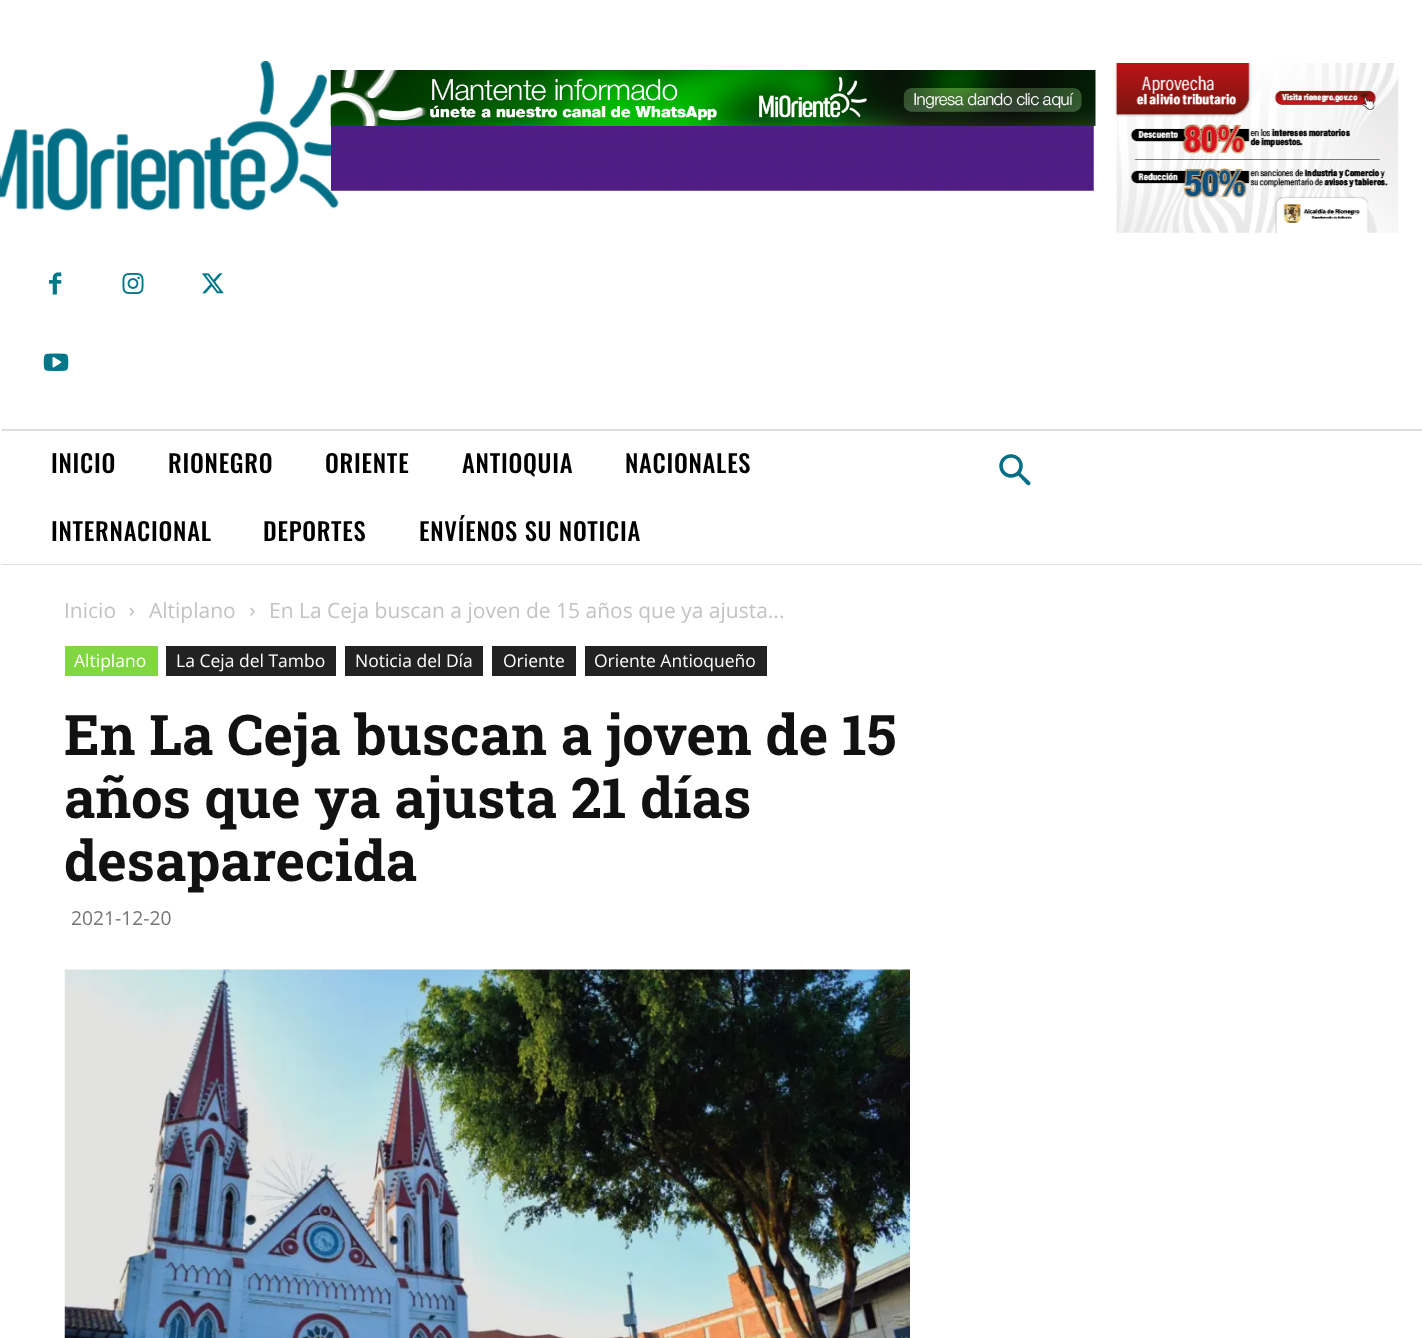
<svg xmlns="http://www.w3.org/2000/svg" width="1422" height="1338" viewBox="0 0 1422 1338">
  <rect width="100%" height="100%" fill="#fff"/>
  <image x="0" y="61" width="339" height="150" href="img/1.png"/>
  <image x="49" y="272" width="13" height="23" href="img/2.png"/>
  <image x="122" y="273" width="22" height="21" href="img/3.png"/>
  <image x="202" y="273" width="22" height="21" href="img/4.png"/>
  <image x="43" y="353" width="26" height="18" href="img/5.png"/>
  <image x="330" y="70" width="766" height="56" href="img/6.png"/>
  <image x="331" y="126" width="763" height="65" href="img/7.png"/>
  <image x="1115" y="63" width="284" height="170" href="img/8.png"/>
  <path d="M2 429h1420v2H2z" fill="#ddd"/>
  <path d="M2 564h1420v1H2z" fill="#ddd"/>
  <image x="999" y="454" width="32" height="32" href="img/9.png"/>
  <image x="129" y="607" width="6" height="9" href="img/10.png"/>
  <image x="250" y="607" width="5" height="9" href="img/11.png"/>
  <path d="M65 646h93v30H65z" fill="#81d742"/>
  <path d="M166 646h170v30H166z" fill="#222"/>
  <path d="M345 646h138v30H345z" fill="#222"/>
  <path d="M492 646h84v30H492z" fill="#222"/>
  <path d="M585 646h182v30H585z" fill="#222"/>
  <image x="64" y="969" width="846" height="369" href="img/12.png"/>
  <g font-family="Oswald" font-size="24.5" font-weight="500" letter-spacing="0.75" fill="#000">
    <text x="51" y="473">INICIO</text>
    <text x="168" y="473">RIONEGRO</text>
    <text x="325" y="473">ORIENTE</text>
    <text x="462" y="473">ANTIOQUIA</text>
    <text x="625" y="473">NACIONALES</text>
    <text x="51" y="541">INTERNACIONAL</text>
    <text x="263" y="541">DEPORTES</text>
    <text x="419" y="541">ENVÍENOS SU NOTICIA</text>
  </g>
  <g font-family="Open Sans" font-size="21" fill="#c3c3c3">
    <text x="64" y="618">Inicio</text>
    <text x="149" y="618">Altiplano</text>
    <text x="269" y="618">En La Ceja buscan a joven de 15 años que ya ajusta...</text>
  </g>
  <g font-family="Open Sans" font-size="17.5" fill="#fff">
    <text x="74" y="667">Altiplano</text>
    <text x="176" y="667">La Ceja del Tambo</text>
    <text x="355" y="667">Noticia del Día</text>
    <text x="503" y="667">Oriente</text>
    <text x="594" y="667">Oriente Antioqueño</text>
  </g>
  <g font-family="Roboto Slab" font-size="56" font-weight="bold" fill="#111">
    <text x="64" y="755">En La Ceja buscan a joven de 15</text>
    <text x="64" y="818">años que ya ajusta 21 días</text>
    <text x="64" y="881">desaparecida</text>
  </g>
  <text x="71" y="925" font-family="Open Sans" font-size="19.25" fill="#767676">2021-12-20</text>
</svg>
